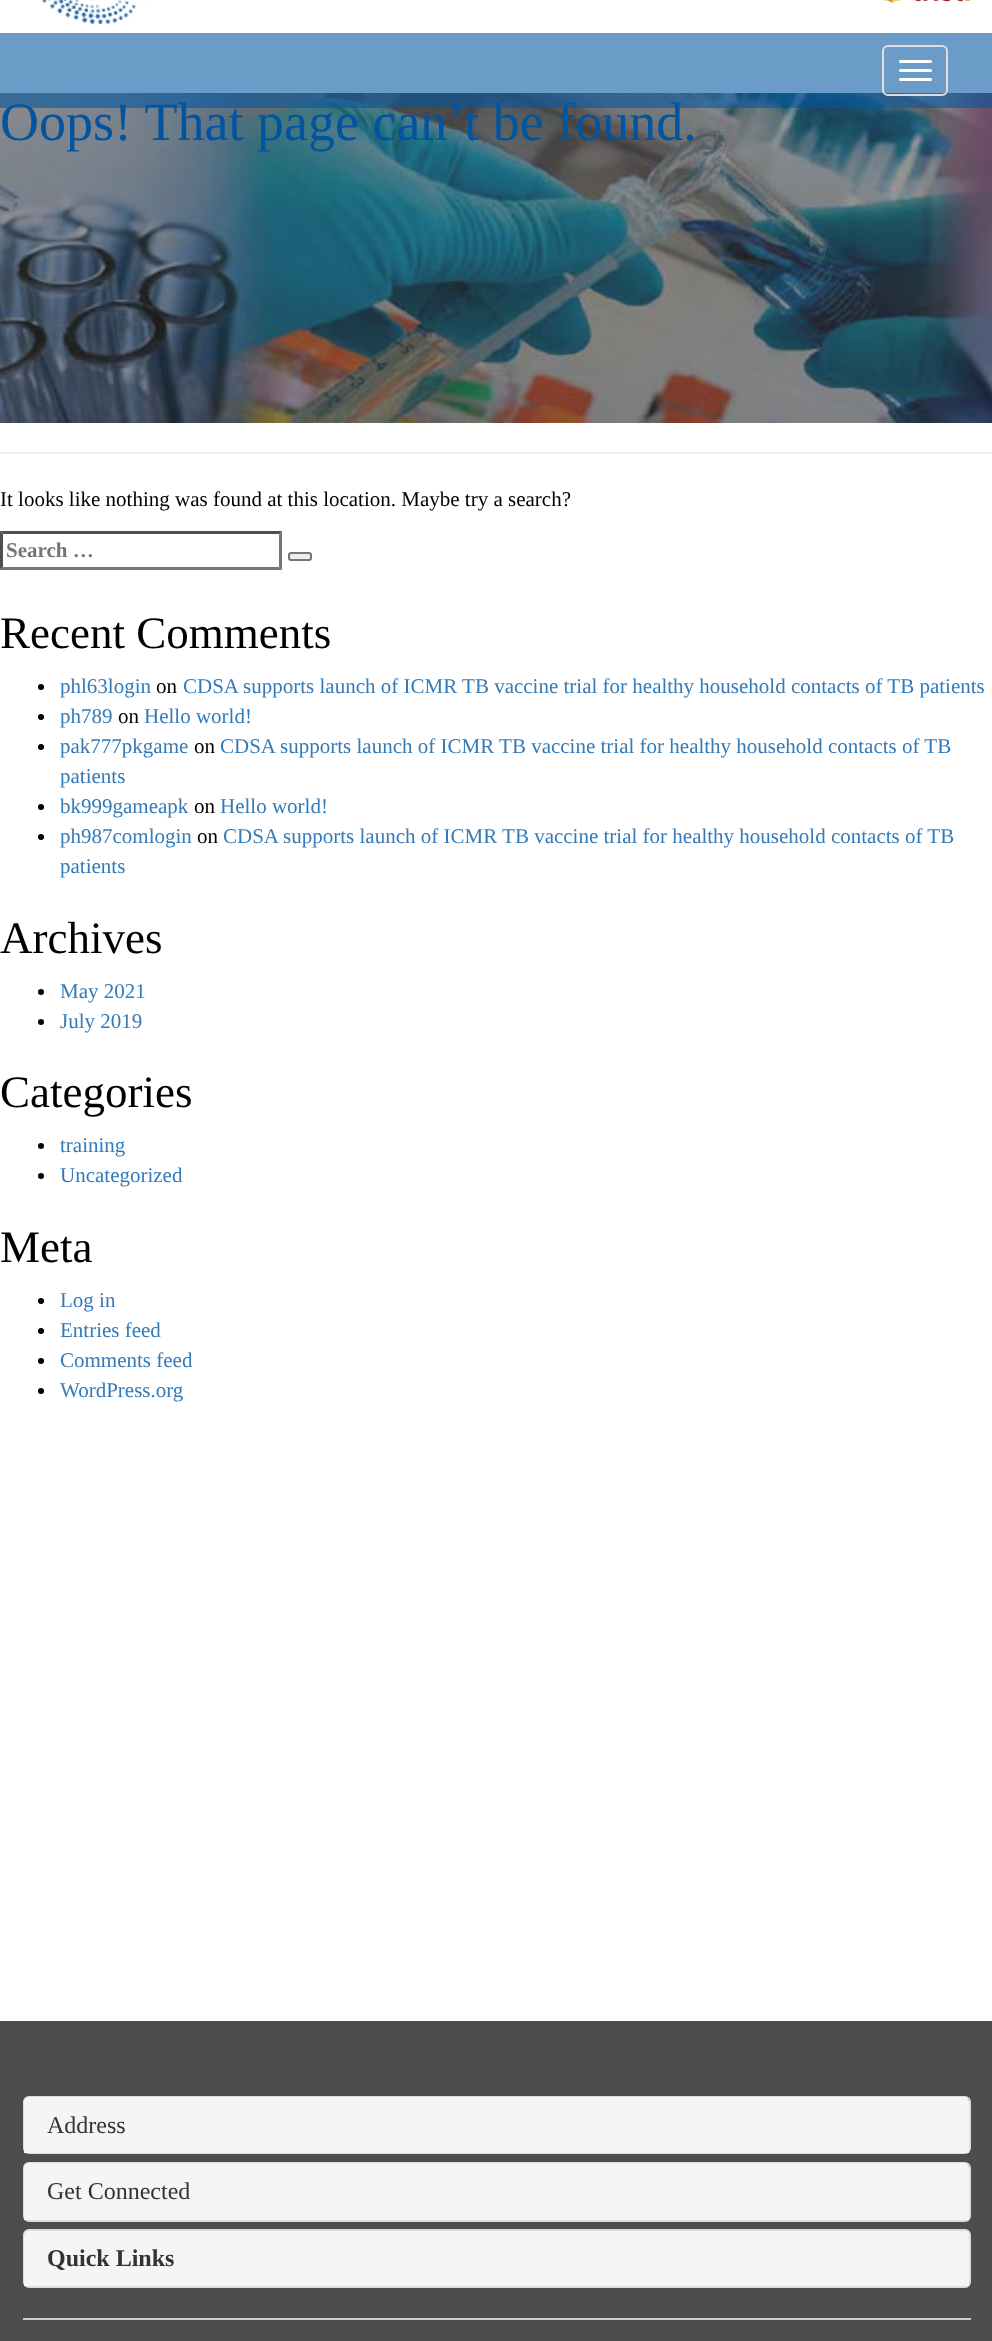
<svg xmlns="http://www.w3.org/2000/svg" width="992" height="2341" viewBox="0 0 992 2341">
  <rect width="100%" height="100%" fill="#fff"/>
  <image x="41" y="0" width="112" height="24" href="img/1.png"/>
  <image x="884" y="0" width="86" height="3" href="img/2.png"/>
  <path d="M0 452h992v2H0z" fill="#eee"/>
  <image x="0" y="93" width="992" height="330" href="img/3.png"/>
  <path d="M0 531H282L279 534H3Z" fill="#4f4f4f"/>
  <path d="M282 531V570L279 567V534Z" fill="#767676"/>
  <path d="M282 570H0L3 567H279Z" fill="#767676"/>
  <path d="M0 570V531L3 534V567Z" fill="#4f4f4f"/>
  <rect x="289" y="553" width="22" height="7" rx="2" fill="#efefef" stroke="#767676" stroke-width="2"/>
  <circle cx="41" cy="687" r="3" fill="#000"/>
  <circle cx="41" cy="717" r="3" fill="#000"/>
  <circle cx="41" cy="747" r="3" fill="#000"/>
  <circle cx="41" cy="807" r="3" fill="#000"/>
  <circle cx="41" cy="837" r="3" fill="#000"/>
  <circle cx="41" cy="992" r="3" fill="#000"/>
  <circle cx="41" cy="1022" r="3" fill="#000"/>
  <circle cx="41" cy="1146" r="3" fill="#000"/>
  <circle cx="41" cy="1176" r="3" fill="#000"/>
  <circle cx="41" cy="1301" r="3" fill="#000"/>
  <circle cx="41" cy="1331" r="3" fill="#000"/>
  <circle cx="41" cy="1361" r="3" fill="#000"/>
  <circle cx="41" cy="1391" r="3" fill="#000"/>
  <path d="M0 2021h992v320H0z" fill="#4e4c4c"/>
  <rect x="24" y="2097" width="946" height="56" rx="5" fill="none" stroke="#ddd" stroke-width="2"/>
  <path d="M29 2097H964C967 2097 969 2099 969 2102V2153H24V2102C24 2099 26 2097 29 2097Z" fill="#f5f5f5"/>
  <rect x="24" y="2163" width="946" height="58" rx="5" fill="none" stroke="#ddd" stroke-width="2"/>
  <path d="M29 2163H964C967 2163 969 2165 969 2168V2220H24V2168C24 2165 26 2163 29 2163Z" fill="#f5f5f5"/>
  <rect x="24" y="2230" width="946" height="57" rx="5" fill="#fff" stroke="#ddd" stroke-width="2"/>
  <path d="M29 2231H964C967 2231 969 2233 969 2236V2286H24V2236C24 2233 26 2231 29 2231Z" fill="#f5f5f5"/>
  <path d="M23 2318h948v2H23z" fill="#ccc"/>
  <text x="0" y="140" font-family="Liberation Serif" font-size="54" fill="#02549f">Oops! That page can’t be found.</text>
  <path d="M0 33h992v75H0z" fill="#0356a196"/>
  <rect x="883" y="46" width="64" height="49" rx="5" fill="none" stroke="#ddd" stroke-width="2"/>
  <rect x="899" y="78" width="33" height="3" rx="1.5" fill="#fff"/>
  <rect x="899" y="69" width="33" height="3" rx="1.5" fill="#fff"/>
  <rect x="899" y="60" width="33" height="3" rx="1.5" fill="#fff"/>
  <text x="0" y="506" font-family="Liberation Serif" font-size="21" fill="#000">It looks like nothing was found at this location. Maybe try a search?</text>
  <text x="6" y="557" font-family="Liberation Serif" font-size="21" font-weight="bold" fill="#757575">Search …</text>
  <text x="0" y="648" font-family="Liberation Serif" font-size="45" fill="#000">Recent Comments</text>
  <text x="60" y="693" font-family="Liberation Serif" font-size="21" fill="#337ab7">phl63login</text>
  <text x="156" y="693" font-family="Liberation Serif" font-size="21" fill="#000">on</text>
  <g font-family="Liberation Serif" font-size="21" fill="#337ab7">
    <text x="183" y="693">CDSA supports launch of ICMR TB vaccine trial for healthy household contacts of TB patients</text>
    <text x="60" y="723">ph789</text>
  </g>
  <text x="118" y="723" font-family="Liberation Serif" font-size="21" fill="#000">on</text>
  <g font-family="Liberation Serif" font-size="21" fill="#337ab7">
    <text x="144" y="723">Hello world!</text>
    <text x="60" y="753">pak777pkgame</text>
  </g>
  <text x="194" y="753" font-family="Liberation Serif" font-size="21" fill="#000">on</text>
  <g font-family="Liberation Serif" font-size="21" fill="#337ab7">
    <text x="220" y="753">CDSA supports launch of ICMR TB vaccine trial for healthy household contacts of TB</text>
    <text x="60" y="783">patients</text>
    <text x="60" y="813">bk999gameapk</text>
  </g>
  <text x="194" y="813" font-family="Liberation Serif" font-size="21" fill="#000">on</text>
  <g font-family="Liberation Serif" font-size="21" fill="#337ab7">
    <text x="220" y="813">Hello world!</text>
    <text x="60" y="843">ph987comlogin</text>
  </g>
  <text x="197" y="843" font-family="Liberation Serif" font-size="21" fill="#000">on</text>
  <g font-family="Liberation Serif" font-size="21" fill="#337ab7">
    <text x="223" y="843">CDSA supports launch of ICMR TB vaccine trial for healthy household contacts of TB</text>
    <text x="60" y="873">patients</text>
  </g>
  <text x="0" y="953" font-family="Liberation Serif" font-size="45" fill="#000">Archives</text>
  <g font-family="Liberation Serif" font-size="21" fill="#337ab7">
    <text x="60" y="998">May 2021</text>
    <text x="60" y="1028">July 2019</text>
  </g>
  <text x="0" y="1107" font-family="Liberation Serif" font-size="45" fill="#000">Categories</text>
  <g font-family="Liberation Serif" font-size="21" fill="#337ab7">
    <text x="60" y="1152">training</text>
    <text x="60" y="1182">Uncategorized</text>
  </g>
  <text x="0" y="1262" font-family="Liberation Serif" font-size="45" fill="#000">Meta</text>
  <g font-family="Liberation Serif" font-size="21" fill="#337ab7">
    <text x="60" y="1307">Log in</text>
    <text x="60" y="1337">Entries feed</text>
    <text x="60" y="1367">Comments feed</text>
    <text x="60" y="1397">WordPress.org</text>
  </g>
  <g font-family="Liberation Serif" font-size="24" fill="#333">
    <text x="47" y="2133">Address</text>
    <text x="47" y="2199">Get Connected</text>
  </g>
  <text x="47" y="2266" font-family="Liberation Serif" font-size="24" font-weight="bold" fill="#333">Quick Links</text>
</svg>
